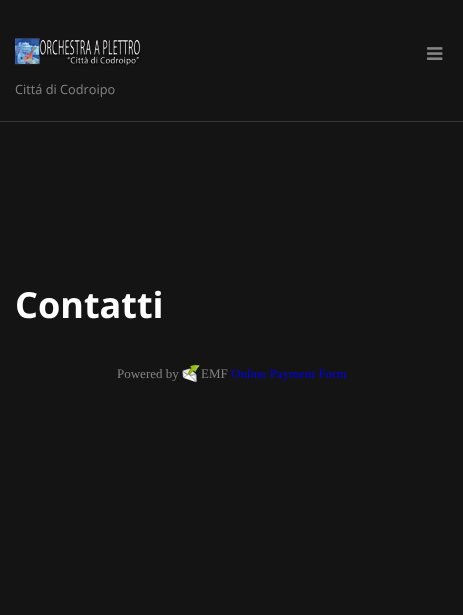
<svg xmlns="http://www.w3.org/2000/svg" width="463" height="615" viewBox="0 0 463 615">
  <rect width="100%" height="100%" fill="#141414"/>
  <path d="M0 121h463v1H0z" fill="#373737"/>
  <image x="427" y="47" width="16" height="13" href="img/1.png"/>
  <image x="15" y="38" width="126" height="28" href="img/2.png"/>
  <image x="182" y="364" width="18" height="19" href="img/3.png"/>
  <text x="15" y="94" font-family="Open Sans" font-size="12.75" fill="#848484">Cittá di Codroipo</text>
  <text x="15" y="318" font-family="Open Sans" font-size="36" font-weight="bold" fill="#fff">Contatti</text>
  <g font-family="Liberation Serif" font-size="13" fill="#848484">
    <text x="117" y="378">Powered by</text>
    <text x="201" y="378">EMF</text>
  </g>
  <text x="231" y="378" font-family="Liberation Serif" font-size="13" fill="#00e">Online Payment Form</text>
</svg>
